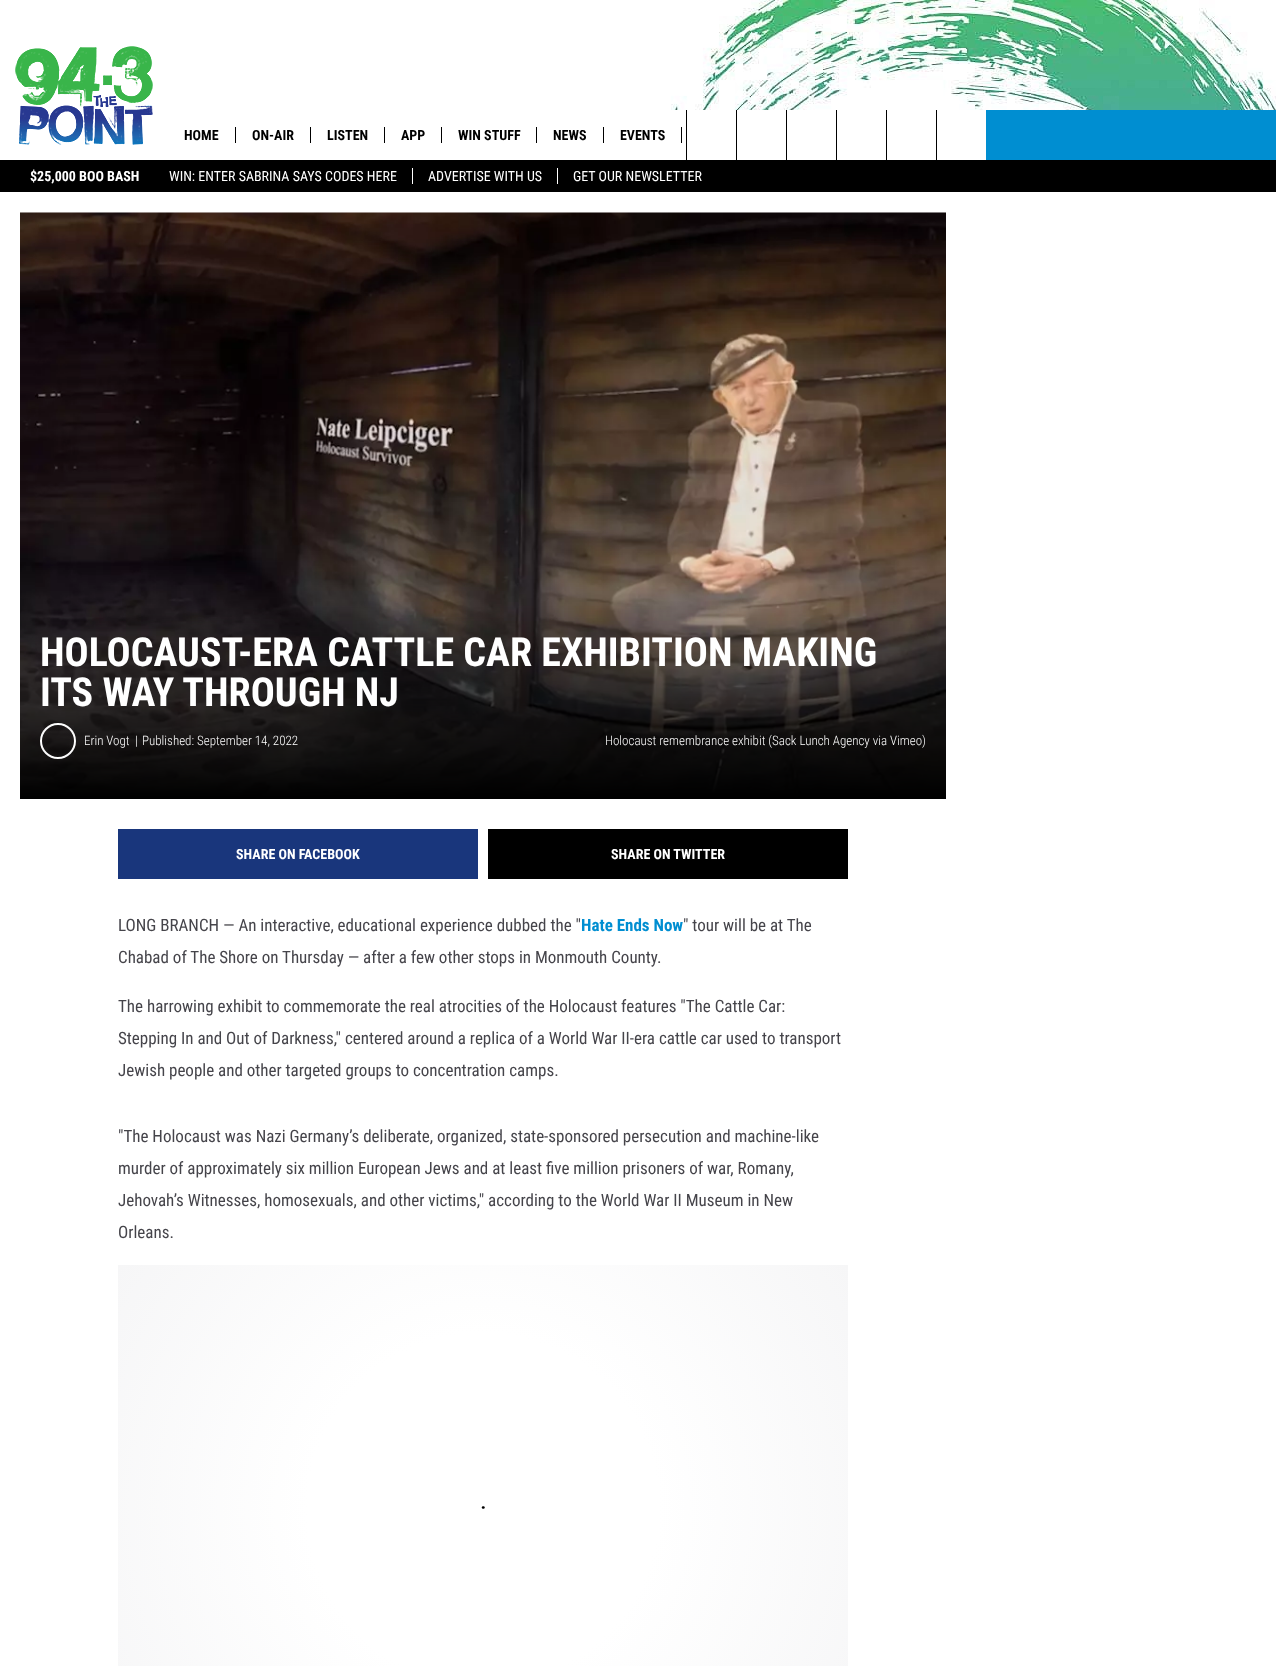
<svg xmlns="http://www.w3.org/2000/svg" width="1276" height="1666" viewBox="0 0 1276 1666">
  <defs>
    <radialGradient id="g1" gradientUnits="userSpaceOnUse" cx="483" cy="521" r="556"><stop offset="0.4" stop-color="#fff"/><stop offset="1" stop-color="#f7f6f7"/></radialGradient>
    <radialGradient id="g2" gradientUnits="userSpaceOnUse" cx="58" cy="741" r="23"><stop offset="0.4" stop-color="#45444a" stop-opacity="0"/><stop offset="1" stop-color="#45444a" stop-opacity="0.05"/></radialGradient>
    <radialGradient id="g3" gradientUnits="userSpaceOnUse" cx="483" cy="1509" r="439"><stop offset="0.4" stop-color="#fff"/><stop offset="1" stop-color="#f6f6f7"/></radialGradient>
  </defs>
  <rect width="100%" height="100%" fill="#fff"/>
  <image x="655" y="0" width="621" height="110" href="img/1.png"/>
  <image x="15" y="46" width="138" height="99" href="img/2.png"/>
  <path d="M235 127h1v16H235z" fill="#000"/>
  <path d="M310 127h1v16H310z" fill="#000"/>
  <path d="M384 127h1v16H384z" fill="#000"/>
  <path d="M441 127h1v16H441z" fill="#000"/>
  <path d="M536 127h1v16H536z" fill="#000"/>
  <path d="M603 127h1v16H603z" fill="#000"/>
  <path d="M681 127h1v16H681z" fill="#000"/>
  <path d="M686 110h1v50H686z" fill="#000"/>
  <path d="M736 110h1v50H736z" fill="#000"/>
  <path d="M786 110h1v50H786z" fill="#000"/>
  <path d="M836 110h1v50H836z" fill="#000"/>
  <path d="M886 110h1v50H886z" fill="#000"/>
  <path d="M936 110h1v50H936z" fill="#000"/>
  <path d="M986 110h290v50H986z" fill="#008ed1"/>
  <path d="M0 160h1276v32H0z" fill="#000"/>
  <path d="M412 168h1v16H412z" fill="#fff"/>
  <path d="M557 168h1v16H557z" fill="#fff"/>
  <path d="M20 212h926v1H20z" fill="url(#g1)"/>
  <image x="20" y="212" width="926" height="587" href="img/3.png"/>
  <circle cx="58" cy="741" r="17" fill="none" stroke="#fff" stroke-width="2"/>
  <path d="M42 725h32v32H42z" fill="url(#g2)"/>
  <path d="M118 829h360v50H118z" fill="#19367c"/>
  <path d="M488 829h360v50H488z" fill="#000"/>
  <path d="M118 1265h730v401H118z" fill="url(#g3)"/>
  <path d="M483 1507.5H483.5" fill="none" stroke="#000" stroke-width="2.4" stroke-linecap="round"/>
  <g font-family="Roboto Condensed" font-size="14" font-weight="bold" fill="#000">
    <text x="184" y="140">HOME</text>
    <text x="252" y="140">ON-AIR</text>
    <text x="327" y="140">LISTEN</text>
    <text x="401" y="140">APP</text>
    <text x="458" y="140">WIN STUFF</text>
    <text x="553" y="140">NEWS</text>
    <text x="620" y="140">EVENTS</text>
  </g>
  <text x="30" y="181" font-family="Roboto Condensed" font-size="14" font-weight="bold" fill="#fff">$25,000 BOO BASH</text>
  <g font-family="Roboto Condensed" font-size="14" fill="#fff">
    <text x="169" y="181">WIN: ENTER SABRINA SAYS CODES HERE</text>
    <text x="428" y="181">ADVERTISE WITH US</text>
    <text x="573" y="181">GET OUR NEWSLETTER</text>
  </g>
  <g font-family="Roboto Condensed" font-size="40" font-weight="bold" fill="#fff">
    <text x="40" y="666">HOLOCAUST-ERA CATTLE CAR EXHIBITION MAKING</text>
    <text x="40" y="706">ITS WAY THROUGH NJ</text>
  </g>
  <g font-family="Roboto Condensed" font-size="13" font-weight="300" fill="#fff">
    <text x="84" y="745">Erin Vogt</text>
    <text x="135" y="745">|</text>
    <text x="142" y="745">Published: September 14, 2022</text>
    <text x="605" y="745">Holocaust remembrance exhibit (Sack Lunch Agency via Vimeo)</text>
  </g>
  <g font-family="Roboto Condensed" font-size="14" font-weight="bold" fill="#fff">
    <text x="236" y="859">SHARE ON FACEBOOK</text>
    <text x="611" y="859">SHARE ON TWITTER</text>
  </g>
  <text x="118" y="931" font-family="Roboto Condensed" font-size="17" fill="#45444a">LONG BRANCH — An interactive, educational experience dubbed the "</text>
  <text x="581" y="931" font-family="Roboto Condensed" font-size="17" font-weight="bold" fill="#008ed1">Hate Ends Now</text>
  <g font-family="Roboto Condensed" font-size="17" fill="#45444a">
    <text x="683" y="931">" tour will be at The</text>
    <text x="118" y="963">Chabad of The Shore on Thursday — after a few other stops in Monmouth County.</text>
    <text x="118" y="1012">The harrowing exhibit to commemorate the real atrocities of the Holocaust features "The Cattle Car:</text>
    <text x="118" y="1044">Stepping In and Out of Darkness," centered around a replica of a World War II-era cattle car used to transport</text>
    <text x="118" y="1076">Jewish people and other targeted groups to concentration camps.</text>
    <text x="118" y="1142">"The Holocaust was Nazi Germany’s deliberate, organized, state-sponsored persecution and machine-like</text>
    <text x="118" y="1174">murder of approximately six million European Jews and at least five million prisoners of war, Romany,</text>
    <text x="118" y="1206">Jehovah’s Witnesses, homosexuals, and other victims," according to the World War II Museum in New</text>
    <text x="118" y="1238">Orleans.</text>
  </g>
</svg>
